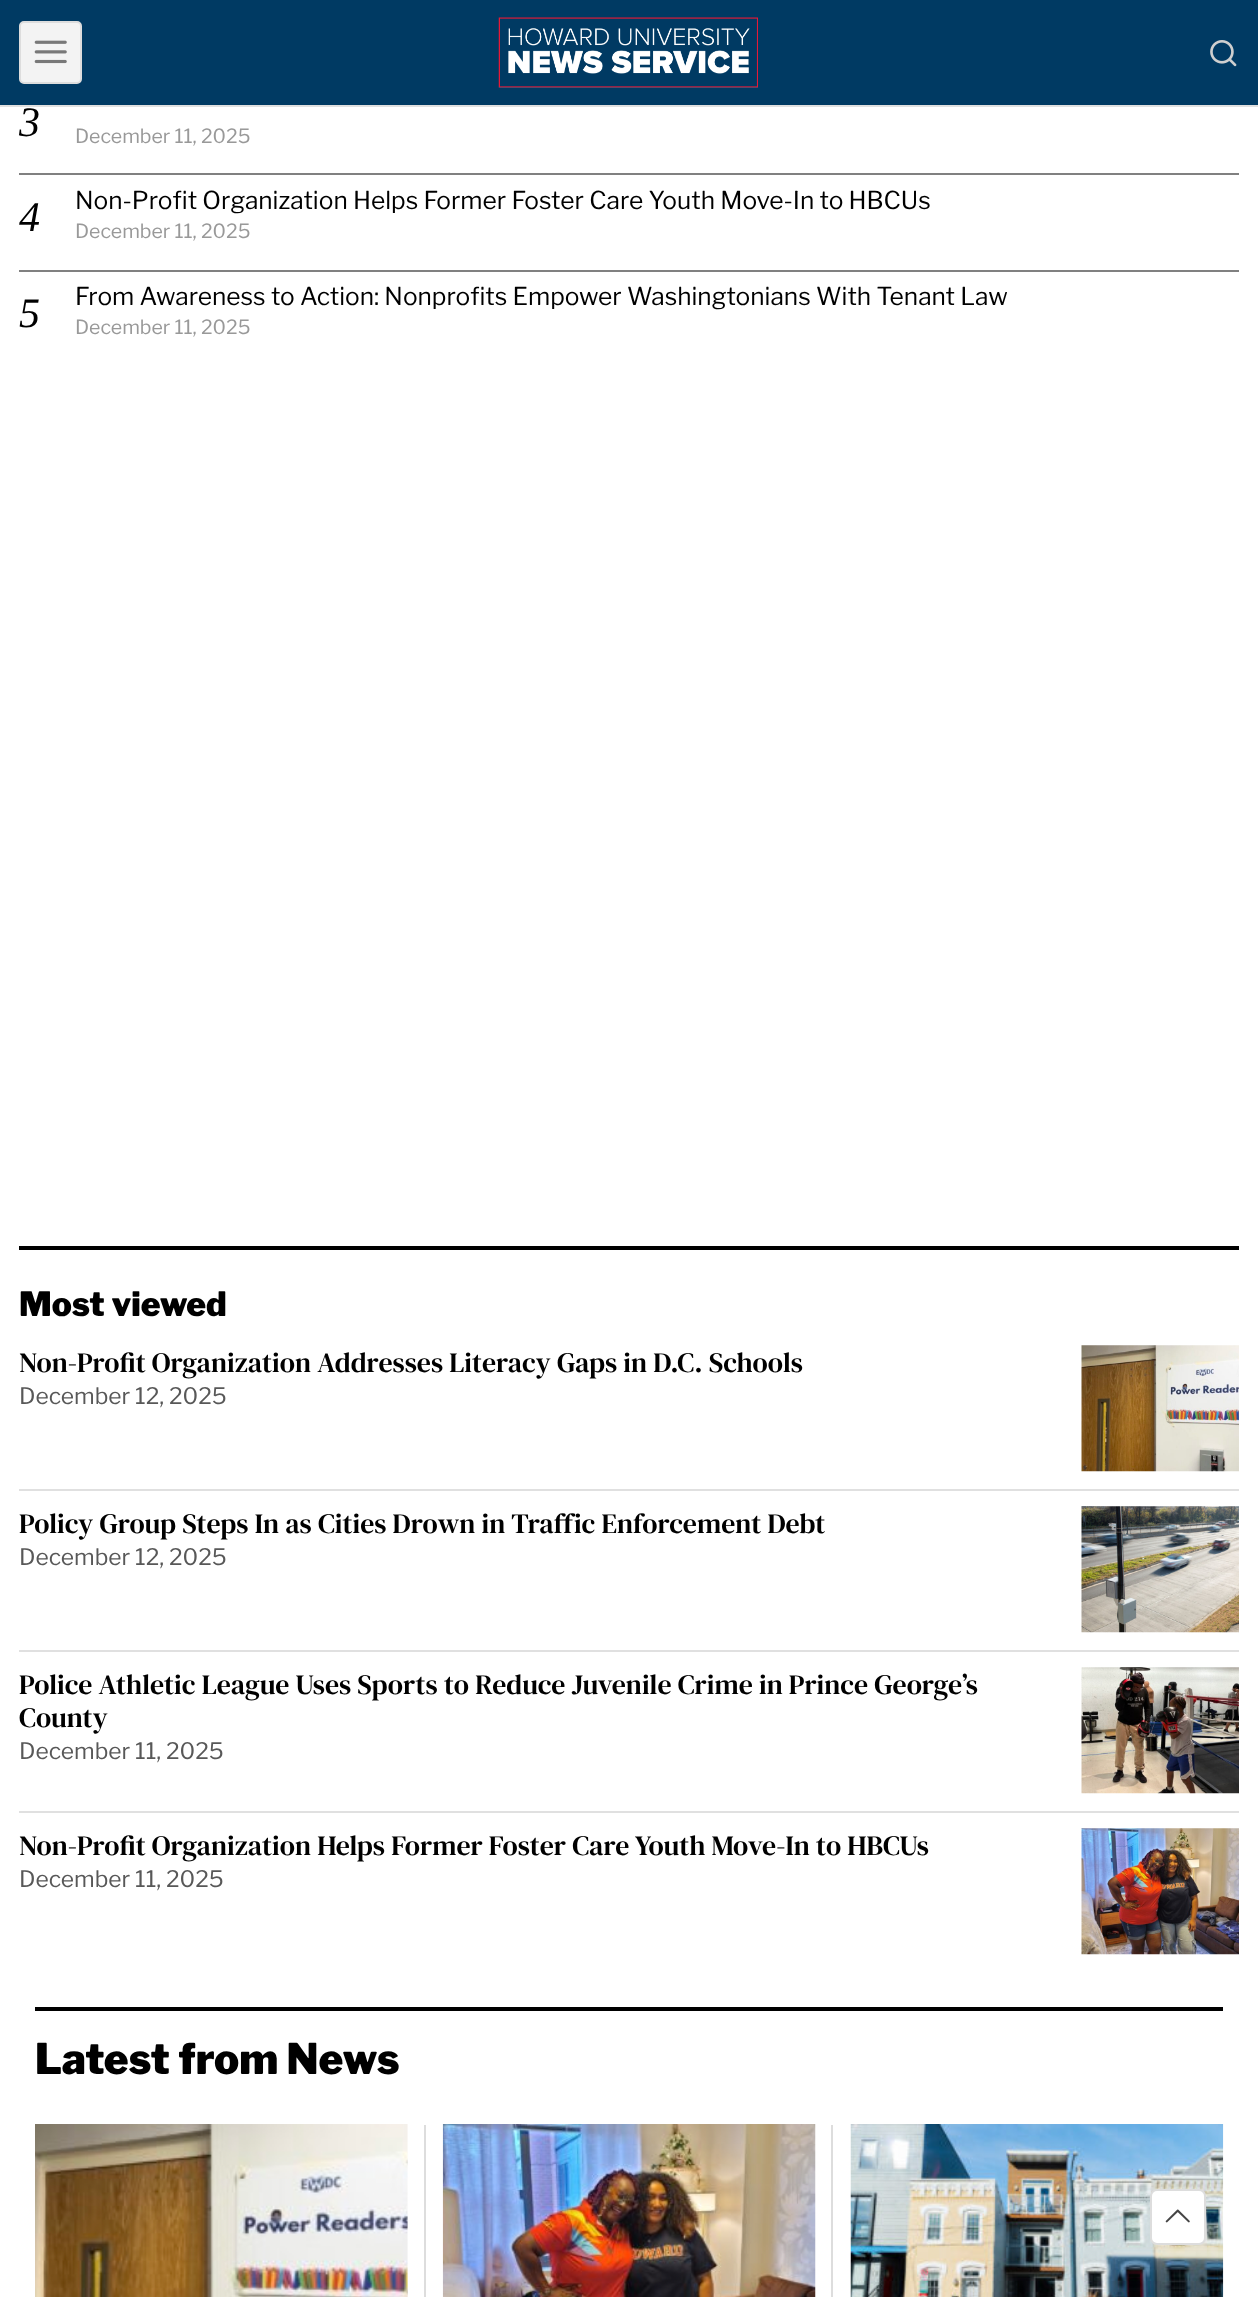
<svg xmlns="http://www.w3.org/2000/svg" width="1258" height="2297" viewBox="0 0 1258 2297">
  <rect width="100%" height="100%" fill="#fff"/>
  <path d="M0 0h1258v105H0z" fill="#003a63"/>
  <path d="M0 105h1258v2H0z" fill="#e0e0e0"/>
  <rect x="20" y="22" width="61" height="61" rx="4" fill="#f3f3f3" stroke="#ddd" stroke-width="2"/>
  <image x="34" y="40" width="33" height="24" href="img/1.png"/>
  <image x="498" y="17" width="260" height="71" href="img/2.png"/>
  <image x="1210" y="40" width="27" height="27" href="img/3.png"/>
  <path d="M19 173h1220v2H19z" fill="#808080"/>
  <path d="M19 270h1220v2H19z" fill="#808080"/>
  <path d="M19 1246h1220v4H19z" fill="#000"/>
  <image x="1081" y="1345" width="158" height="127" href="img/4.png"/>
  <path d="M19 1489h1220v2H19z" fill="#e0e0e0"/>
  <image x="1081" y="1506" width="158" height="127" href="img/5.png"/>
  <path d="M19 1650h1220v2H19z" fill="#e0e0e0"/>
  <image x="1081" y="1667" width="158" height="127" href="img/6.png"/>
  <path d="M19 1811h1220v2H19z" fill="#e0e0e0"/>
  <image x="1081" y="1828" width="158" height="127" href="img/7.png"/>
  <path d="M35 2007h1188v4H35z" fill="#000"/>
  <image x="35" y="2124" width="373" height="173" href="img/8.png"/>
  <image x="442" y="2124" width="374" height="173" href="img/9.png"/>
  <image x="850" y="2124" width="374" height="173" href="img/10.png"/>
  <path d="M424 2125h2v172H424z" fill="#ddd"/>
  <path d="M831 2125h2v172H831z" fill="#ddd"/>
  <rect x="1151" y="2190" width="54" height="54" rx="6" fill="#fff" stroke="#ddd" stroke-width="2"/>
  <image x="1165" y="2209" width="25" height="14" href="img/11.png"/>
  <text x="19" y="136" font-family="Liberation Serif" font-size="42" font-style="italic" fill="#000">3</text>
  <text x="75" y="143" font-family="Libre Franklin" font-size="19.5" fill="#999">December 11, 2025</text>
  <text x="19" y="231" font-family="Liberation Serif" font-size="42" font-style="italic" fill="#000">4</text>
  <text x="75" y="209" font-family="Libre Franklin" font-size="24.5" fill="#000">Non-Profit Organization Helps Former Foster Care Youth Move-In to HBCUs</text>
  <text x="75" y="238" font-family="Libre Franklin" font-size="19.5" fill="#999">December 11, 2025</text>
  <text x="19" y="327" font-family="Liberation Serif" font-size="42" font-style="italic" fill="#000">5</text>
  <text x="75" y="305" font-family="Libre Franklin" font-size="24.5" fill="#000">From Awareness to Action: Nonprofits Empower Washingtonians With Tenant Law</text>
  <text x="75" y="334" font-family="Libre Franklin" font-size="19.5" fill="#999">December 11, 2025</text>
  <text x="19" y="1316" font-family="Libre Franklin" font-size="33.5" font-weight="900" fill="#000">Most viewed</text>
  <text x="19" y="1372" font-family="DM Serif Text" font-size="28" fill="#000">Non-Profit Organization Addresses Literacy Gaps in D.C. Schools</text>
  <text x="19" y="1404" font-family="Libre Franklin" font-size="22.75" fill="#585858">December 12, 2025</text>
  <text x="19" y="1533" font-family="DM Serif Text" font-size="28" fill="#000">Policy Group Steps In as Cities Drown in Traffic Enforcement Debt</text>
  <text x="19" y="1565" font-family="Libre Franklin" font-size="22.75" fill="#585858">December 12, 2025</text>
  <g font-family="DM Serif Text" font-size="28" fill="#000">
    <text x="19" y="1694">Police Athletic League Uses Sports to Reduce Juvenile Crime in Prince George’s</text>
    <text x="19" y="1727">County</text>
  </g>
  <text x="19" y="1759" font-family="Libre Franklin" font-size="22.75" fill="#585858">December 11, 2025</text>
  <text x="19" y="1855" font-family="DM Serif Text" font-size="28" fill="#000">Non-Profit Organization Helps Former Foster Care Youth Move-In to HBCUs</text>
  <text x="19" y="1887" font-family="Libre Franklin" font-size="22.75" fill="#585858">December 11, 2025</text>
  <text x="35" y="2074" font-family="Libre Franklin" font-size="42" font-weight="900" fill="#000">Latest from News</text>
</svg>
